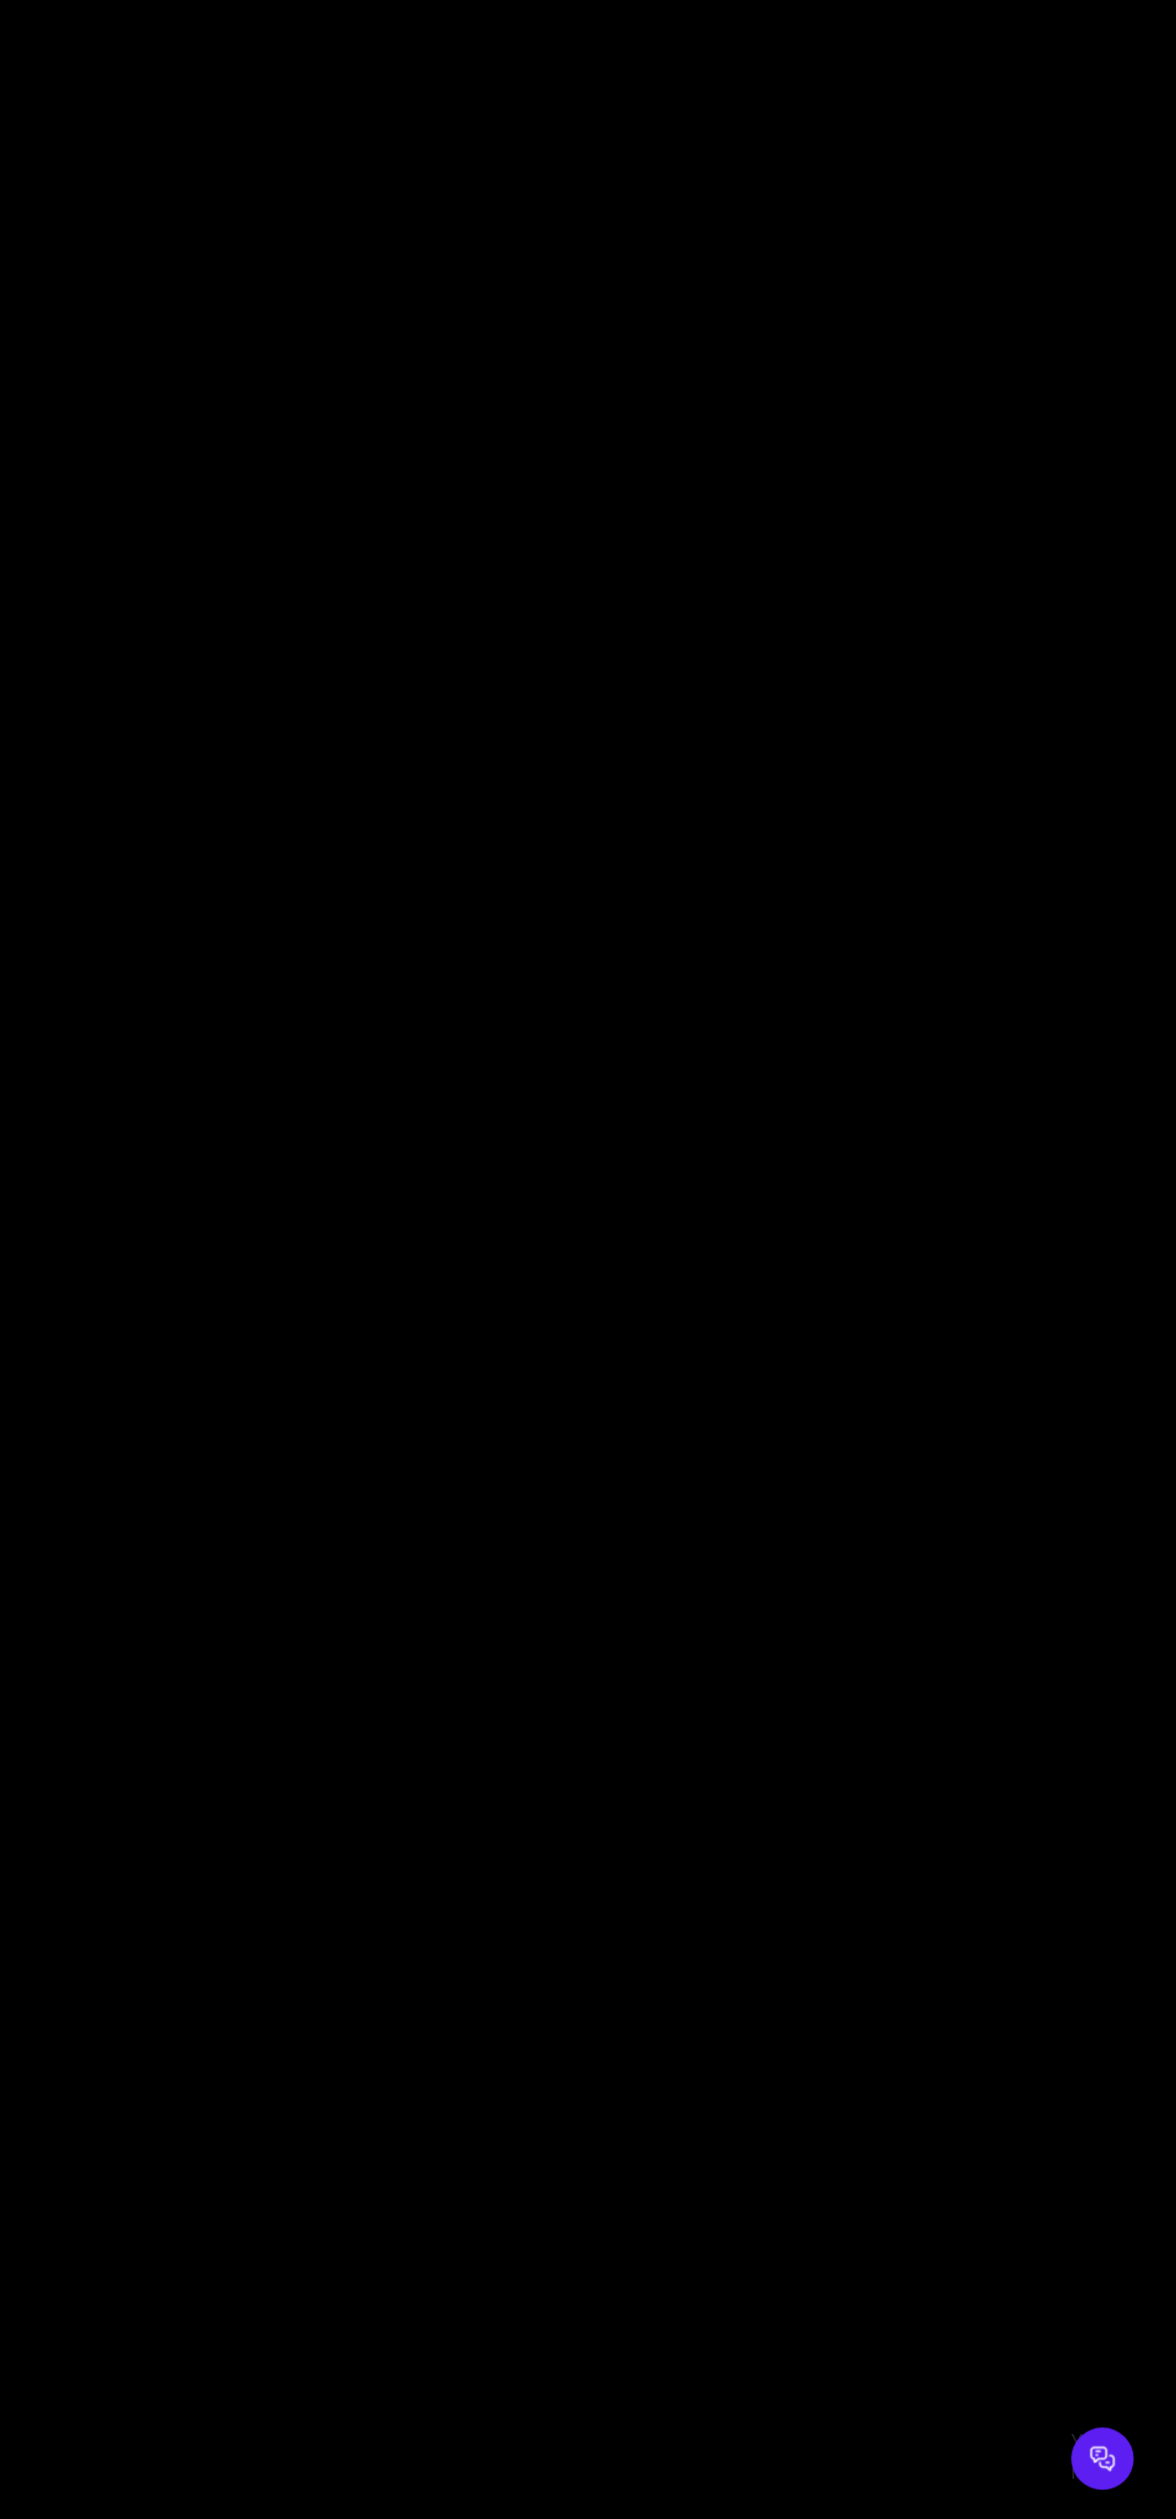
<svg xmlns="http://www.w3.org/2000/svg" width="1176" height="2519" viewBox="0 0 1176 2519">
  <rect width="100%" height="100%" fill="#000"/>
  <image x="1071" y="2427" width="63" height="63" href="img/1.png"/>
</svg>
